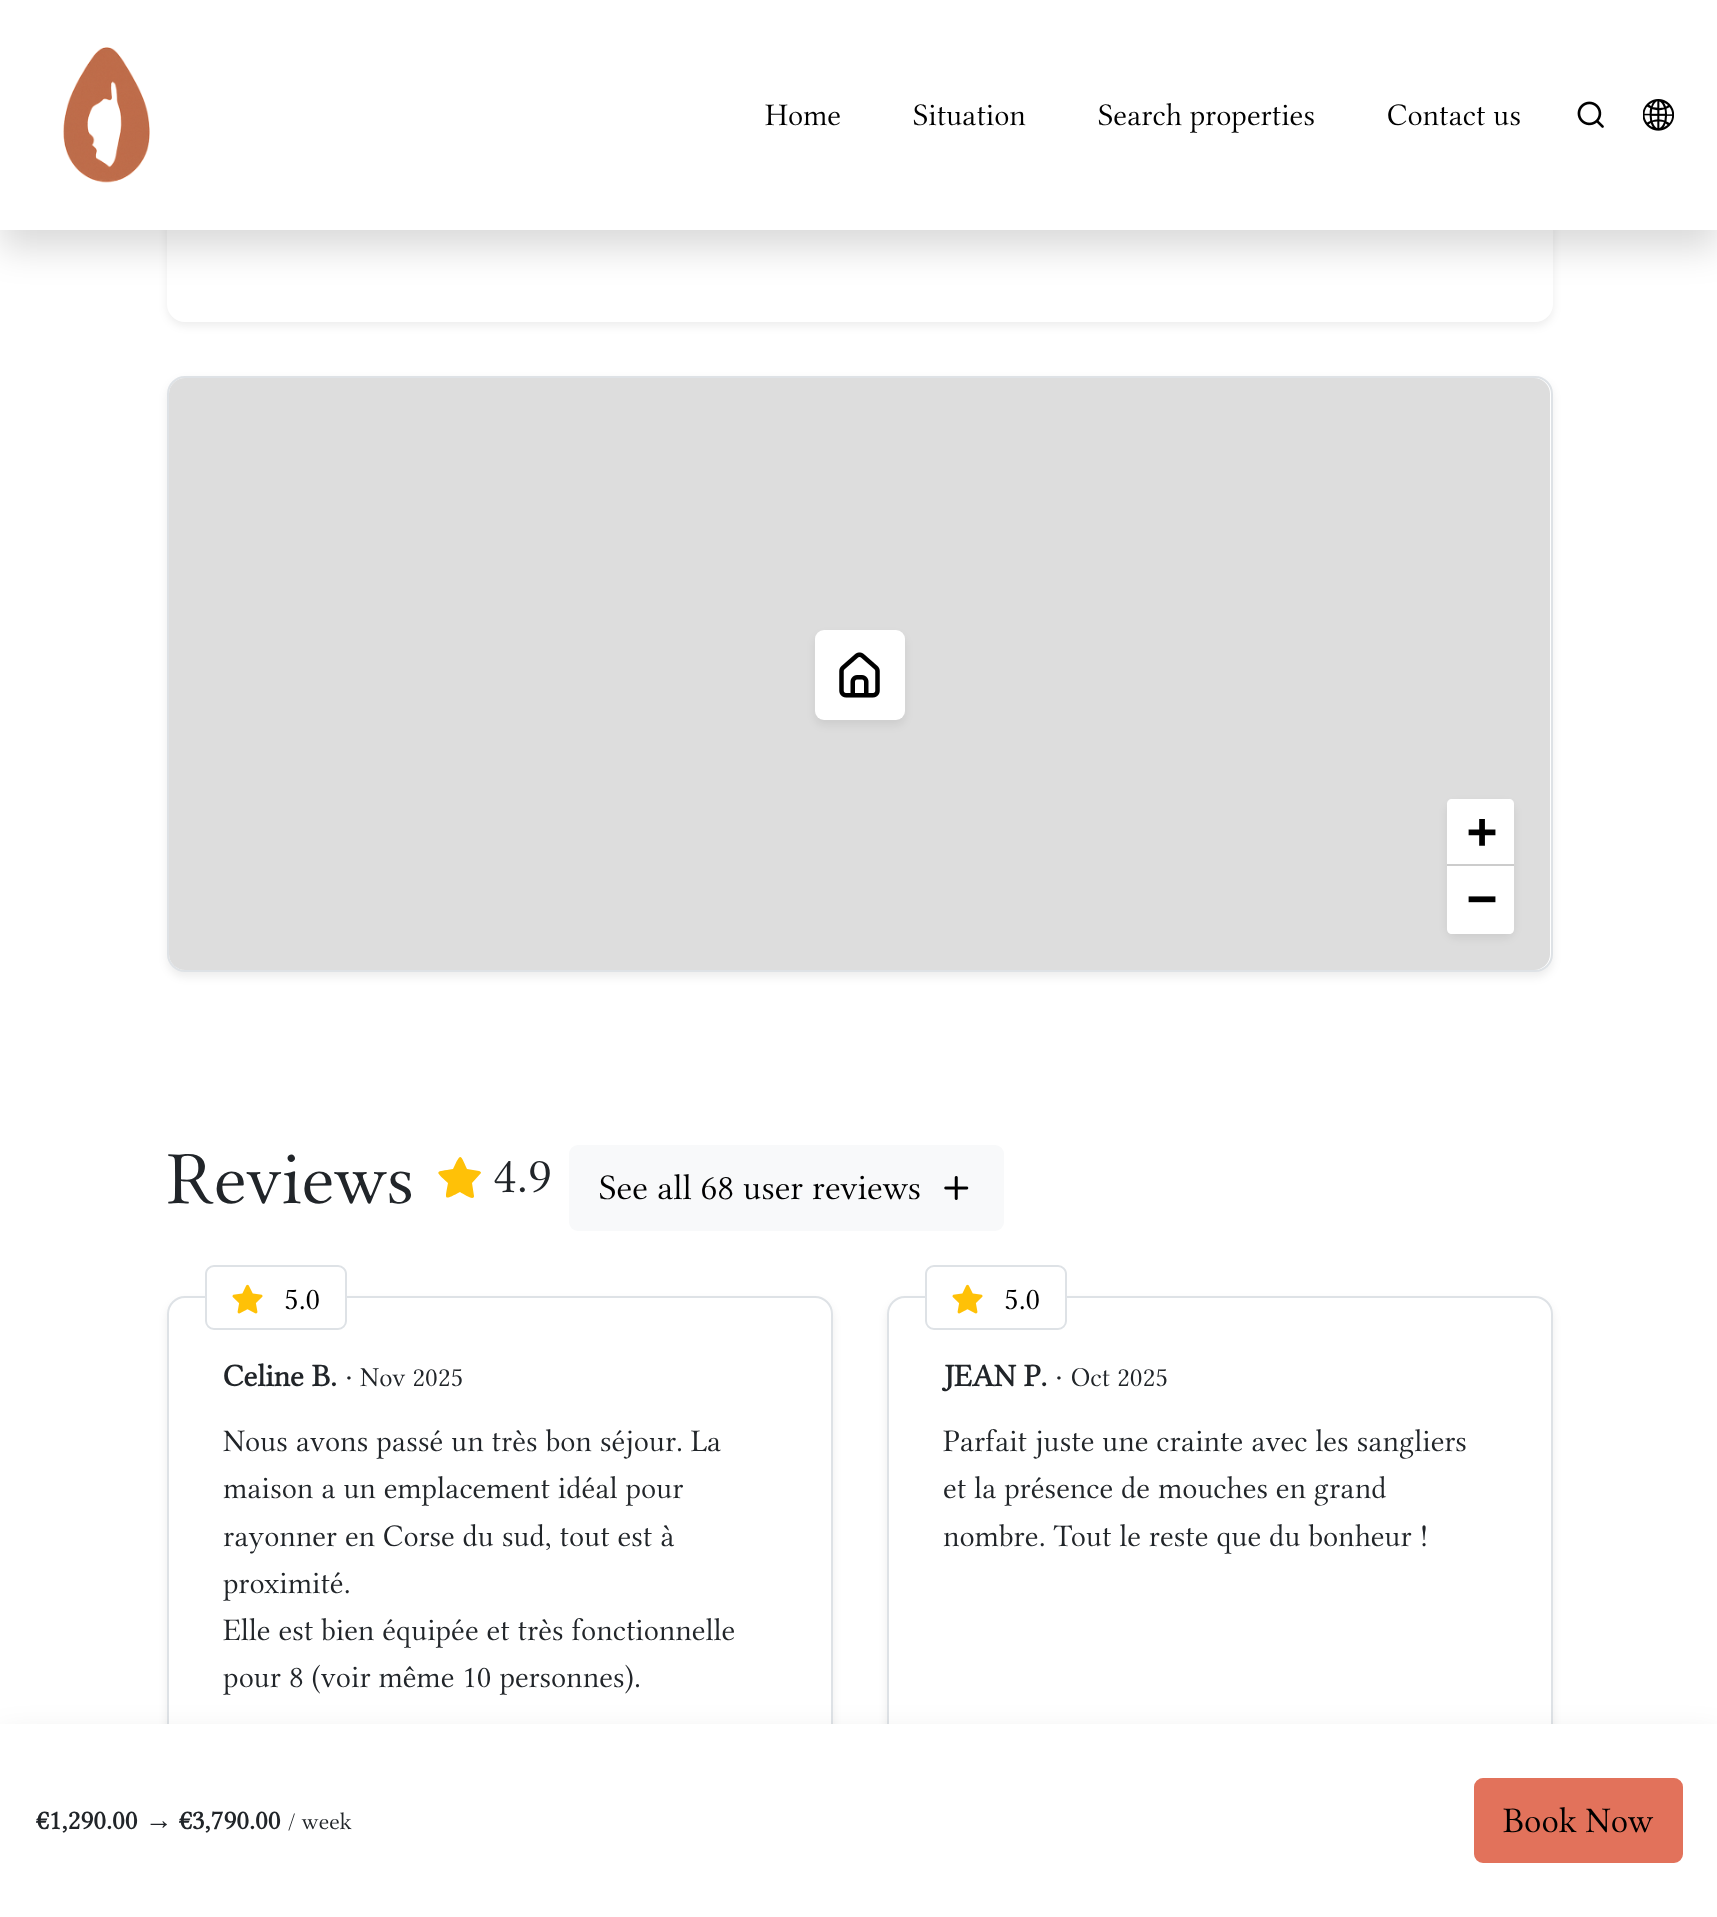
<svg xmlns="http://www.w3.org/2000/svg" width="1717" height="1917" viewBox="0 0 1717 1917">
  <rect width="100%" height="100%" fill="#fff"/>
  <rect x="167" y="-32" width="1386" height="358" rx="18" fill="#00000012" filter="blur(4.5px)"/>
  <rect x="167" y="-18" width="1386" height="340" rx="18" fill="#fff"/>
  <path d="M0 18h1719v230H0z" fill="#00000026" filter="blur(18px)"/>
  <path d="M0 0h1717v230H0z" fill="#fff"/>
  <image x="63" y="47" width="87" height="136" href="img/1.png"/>
  <image x="1577" y="101" width="27" height="27" href="img/2.png"/>
  <image x="1643" y="99" width="31" height="32" href="img/3.png"/>
  <rect x="167" y="380" width="1386" height="597" rx="18" fill="#00000012" filter="blur(4.5px)"/>
  <rect x="168" y="377" width="1384" height="594" rx="17" fill="#fff" stroke="#dee2e6" stroke-width="2"/>
  <rect x="169" y="378" width="1381" height="592" rx="16" fill="#ddd"/>
  <rect x="815" y="635" width="90" height="90" rx="9" fill="#00000012" filter="blur(4.5px)"/>
  <rect x="815" y="630" width="90" height="90" rx="9" fill="#fff"/>
  <image x="839" y="652" width="41" height="46" href="img/4.png"/>
  <rect x="1447" y="803" width="67" height="135" rx="9" fill="#00000012" filter="blur(4.5px)"/>
  <path d="M1452 799H1509C1512 799 1514 801 1514 804V866H1447V804C1447 801 1449 799 1452 799Z" fill="#fff"/>
  <path d="M1447 864h67v2H1447z" fill="#ccc"/>
  <path d="M1447 866H1514V929C1514 932 1512 934 1509 934H1452C1449 934 1447 932 1447 929Z" fill="#fff"/>
  <path d="M481 1173C481 1172 480 1171 479 1171L467 1169C460 1154 461 1152 453 1169C435 1172 434 1170 448 1183C445 1200 443 1201 460 1192C465 1195 474 1201 474 1196L472 1183Z" fill="#ffc107"/>
  <rect x="569" y="1145" width="435" height="86" rx="9" fill="#f8f9fa"/>
  <image x="944" y="1176" width="25" height="24" href="img/5.png"/>
  <rect x="167" y="1301" width="666" height="582" rx="18" fill="#00000012" filter="blur(4.5px)"/>
  <rect x="168" y="1297" width="664" height="581" rx="17" fill="#fff" stroke="#dee2e6" stroke-width="2"/>
  <rect x="206" y="1266" width="140" height="63" rx="8" fill="#fff" stroke="#dee2e6" stroke-width="2"/>
  <image x="232" y="1284" width="31" height="30" href="img/6.png"/>
  <rect x="887" y="1301" width="666" height="582" rx="18" fill="#00000012" filter="blur(4.5px)"/>
  <rect x="888" y="1297" width="664" height="581" rx="17" fill="#fff" stroke="#dee2e6" stroke-width="2"/>
  <rect x="926" y="1266" width="140" height="63" rx="8" fill="#fff" stroke="#dee2e6" stroke-width="2"/>
  <image x="952" y="1284" width="31" height="30" href="img/6.png"/>
  <path d="M0 1742h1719v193H0z" fill="#00000026" filter="blur(18px)"/>
  <path d="M0 1724h1717v193H0z" fill="#fff"/>
  <rect x="1475" y="1779" width="207" height="83" rx="8" fill="#e2725b" stroke="#e2725b" stroke-width="2"/>
  <g font-family="Libertinus Serif Display" font-size="31.5" fill="#000">
    <text x="765" y="125">Home</text>
    <text x="913" y="125">Situation</text>
    <text x="1098" y="125">Search properties</text>
    <text x="1387" y="125">Contact us</text>
  </g>
  <g font-family="DejaVu Sans Mono" font-size="50" font-weight="bold" fill="#000">
    <text x="1467" y="848">+</text>
    <text x="1467" y="915">−</text>
  </g>
  <text x="167" y="1203" font-family="Libertinus Serif Display" font-size="75" fill="#212529">Reviews</text>
  <text x="493" y="1192" font-family="Libertinus Serif Display" font-size="51" fill="#212529">4.9</text>
  <text x="599" y="1199" font-family="Libertinus Serif Display" font-size="36" fill="#000">See all 68 user reviews</text>
  <text x="284" y="1309" font-family="Libertinus Serif Display" font-size="31.5" fill="#000">5.0</text>
  <text x="223" y="1386" font-family="Libertinus Serif Display" font-size="31.5" font-weight="bold" fill="#212529">Celine B.</text>
  <text x="345" y="1386" font-family="Libertinus Serif Display" font-size="31.5" fill="#212529">·</text>
  <text x="360" y="1386" font-family="Libertinus Serif Display" font-size="27.5" fill="#212529">Nov 2025</text>
  <g font-family="Libertinus Serif Display" font-size="31.5" fill="#212529">
    <text x="223" y="1451">Nous avons passé un très bon séjour. La</text>
    <text x="223" y="1498">maison a un emplacement idéal pour</text>
    <text x="223" y="1546">rayonner en Corse du sud, tout est à</text>
    <text x="223" y="1593">proximité.</text>
    <text x="223" y="1640">Elle est bien équipée et très fonctionnelle</text>
    <text x="223" y="1687">pour 8 (voir même 10 personnes).</text>
  </g>
  <text x="1004" y="1309" font-family="Libertinus Serif Display" font-size="31.5" fill="#000">5.0</text>
  <text x="943" y="1386" font-family="Libertinus Serif Display" font-size="31.5" font-weight="bold" fill="#212529">JEAN P.</text>
  <text x="1055" y="1386" font-family="Libertinus Serif Display" font-size="31.5" fill="#212529">·</text>
  <text x="1071" y="1386" font-family="Libertinus Serif Display" font-size="27.5" fill="#212529">Oct 2025</text>
  <g font-family="Libertinus Serif Display" font-size="31.5" fill="#212529">
    <text x="943" y="1451">Parfait juste une crainte avec les sangliers</text>
    <text x="943" y="1498">et la présence de mouches en grand</text>
    <text x="943" y="1546">nombre. Tout le reste que du bonheur !</text>
  </g>
  <text x="36" y="1829" font-family="Libertinus Serif Display" font-size="27.5" font-weight="bold" fill="#212529">€1,290.00</text>
  <text x="145" y="1829" font-family="Liberation Sans" font-size="27.5" fill="#212529">→</text>
  <text x="179" y="1829" font-family="Libertinus Serif Display" font-size="27.5" font-weight="bold" fill="#212529">€3,790.00</text>
  <text x="288" y="1829" font-family="Libertinus Serif Display" font-size="24" fill="#212529">/ week</text>
  <text x="1503" y="1832" font-family="Libertinus Serif Display" font-size="36" fill="#000">Book Now</text>
</svg>
